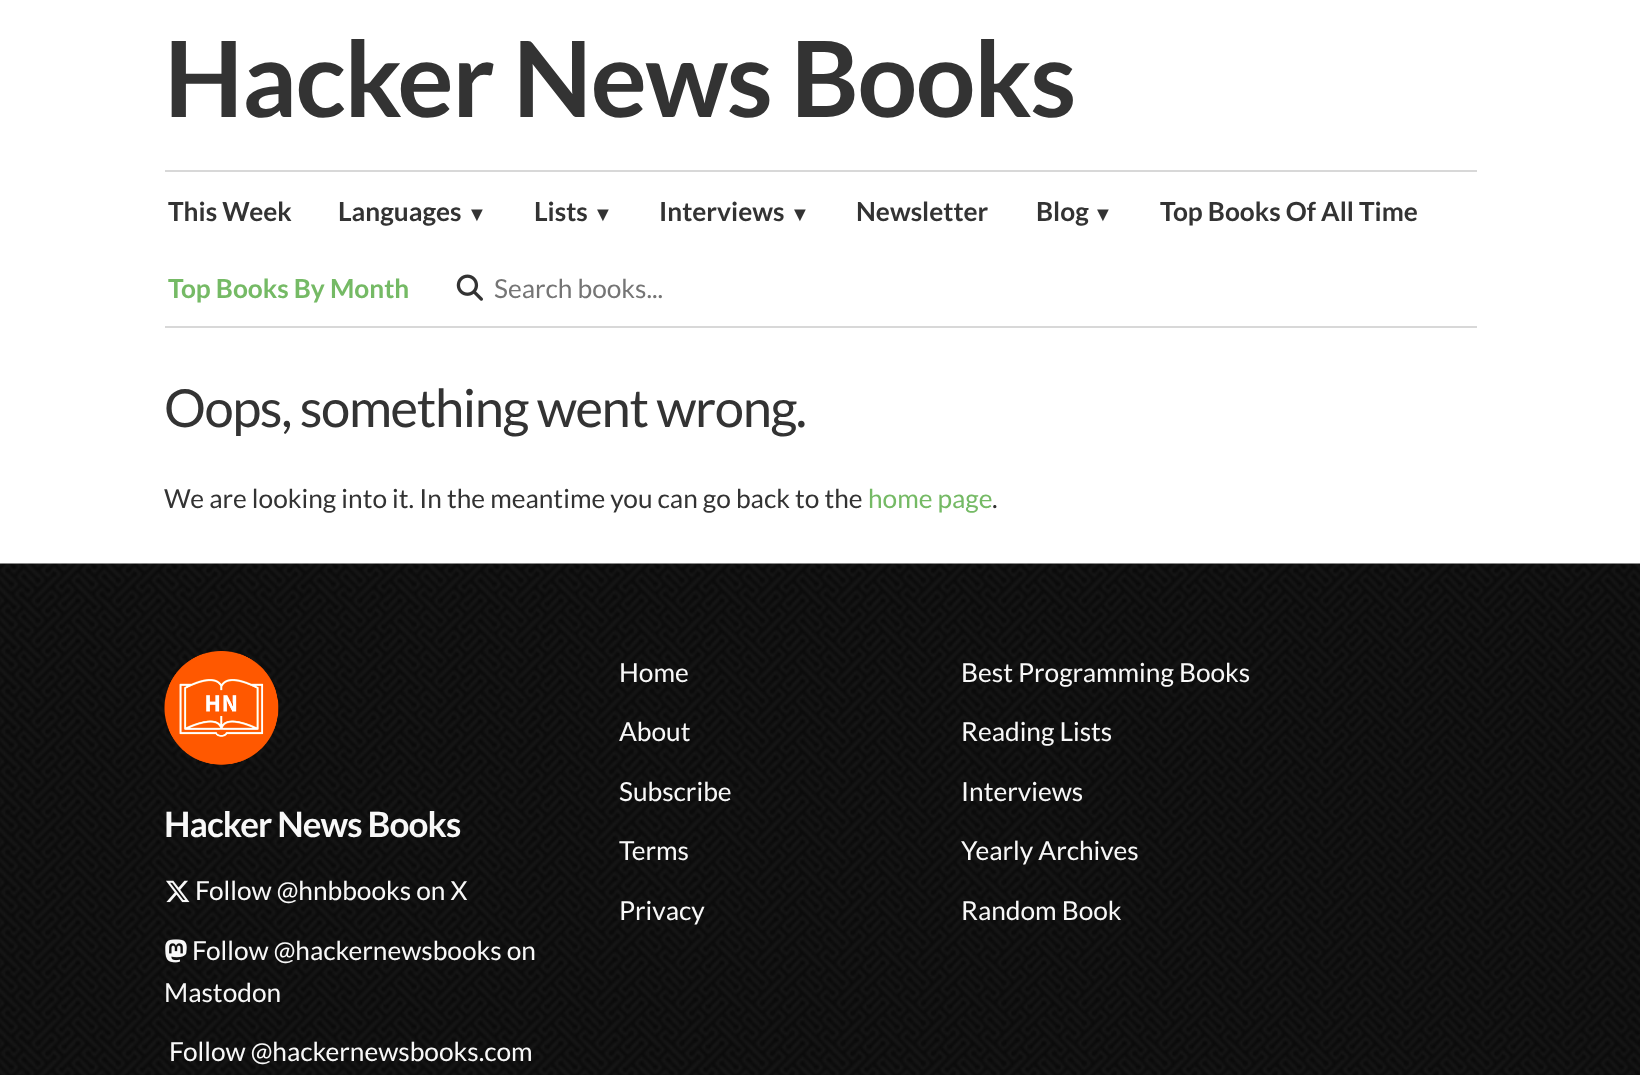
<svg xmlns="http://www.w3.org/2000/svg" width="1640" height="1075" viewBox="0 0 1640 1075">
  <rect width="100%" height="100%" fill="#fff"/>
  <path d="M165 170h1312v2H165z" fill="#d8d8d8"/>
  <path d="M165 326h1312v2H165z" fill="#d8d8d8"/>
  <image x="456" y="274" width="27" height="27" href="img/1.png"/>
  <image x="0" y="563" width="1640" height="512" href="img/2.png"/>
  <image x="164" y="651" width="115" height="114" href="img/3.png"/>
  <image x="166" y="880" width="24" height="23" href="img/4.png"/>
  <image x="165" y="939" width="22" height="24" href="img/5.png"/>
  <text x="164" y="117" font-family="Lato" font-size="105" font-weight="bold" letter-spacing="-1.4" fill="#333">Hacker News Books</text>
  <g font-family="Lato" font-size="26.25" font-weight="bold" fill="#333">
    <text x="168" y="221">This Week</text>
    <text x="338" y="221">Languages</text>
  </g>
  <text x="467" y="221" font-family="Liberation Sans" font-size="20" font-weight="bold" fill="#333">▼</text>
  <text x="534" y="221" font-family="Lato" font-size="26.25" font-weight="bold" fill="#333">Lists</text>
  <text x="593" y="221" font-family="Liberation Sans" font-size="20" font-weight="bold" fill="#333">▼</text>
  <text x="659" y="221" font-family="Lato" font-size="26.25" font-weight="bold" fill="#333">Interviews</text>
  <text x="790" y="221" font-family="Liberation Sans" font-size="20" font-weight="bold" fill="#333">▼</text>
  <g font-family="Lato" font-size="26.25" font-weight="bold" fill="#333">
    <text x="856" y="221">Newsletter</text>
    <text x="1036" y="221">Blog</text>
  </g>
  <text x="1093" y="221" font-family="Liberation Sans" font-size="20" font-weight="bold" fill="#333">▼</text>
  <text x="1160" y="221" font-family="Lato" font-size="26.25" font-weight="bold" fill="#333">Top Books Of All Time</text>
  <text x="168" y="298" font-family="Lato" font-size="26.25" font-weight="bold" fill="#75ba65">Top Books By Month</text>
  <text x="494" y="298" font-family="Lato" font-size="26.25" fill="#757575">Search books...</text>
  <text x="164" y="427" font-family="Lato" font-size="52.5" letter-spacing="-1.4" fill="#333">Oops, something went wrong.</text>
  <text x="164" y="508" font-family="Lato" font-size="26.25" fill="#333">We are looking into it. In the meantime you can go back to the</text>
  <text x="868" y="508" font-family="Lato" font-size="26.25" fill="#75ba65">home page</text>
  <text x="992" y="508" font-family="Lato" font-size="26.25" fill="#333">.</text>
  <text x="164" y="837" font-family="Lato" font-size="35" font-weight="bold" letter-spacing="-0.9" fill="#f8f8f8">Hacker News Books</text>
  <g font-family="Lato" font-size="26.25" fill="#f8f8f8">
    <text x="195" y="900">Follow @hnbbooks on X</text>
    <text x="192" y="960">Follow @hackernewsbooks on</text>
    <text x="164" y="1002">Mastodon</text>
    <text x="169" y="1061">Follow @hackernewsbooks.com</text>
    <text x="619" y="682">Home</text>
    <text x="619" y="741">About</text>
    <text x="619" y="801">Subscribe</text>
    <text x="619" y="860">Terms</text>
    <text x="619" y="920">Privacy</text>
    <text x="961" y="682">Best Programming Books</text>
    <text x="961" y="741">Reading Lists</text>
    <text x="961" y="801">Interviews</text>
    <text x="961" y="860">Yearly Archives</text>
    <text x="961" y="920">Random Book</text>
  </g>
</svg>
